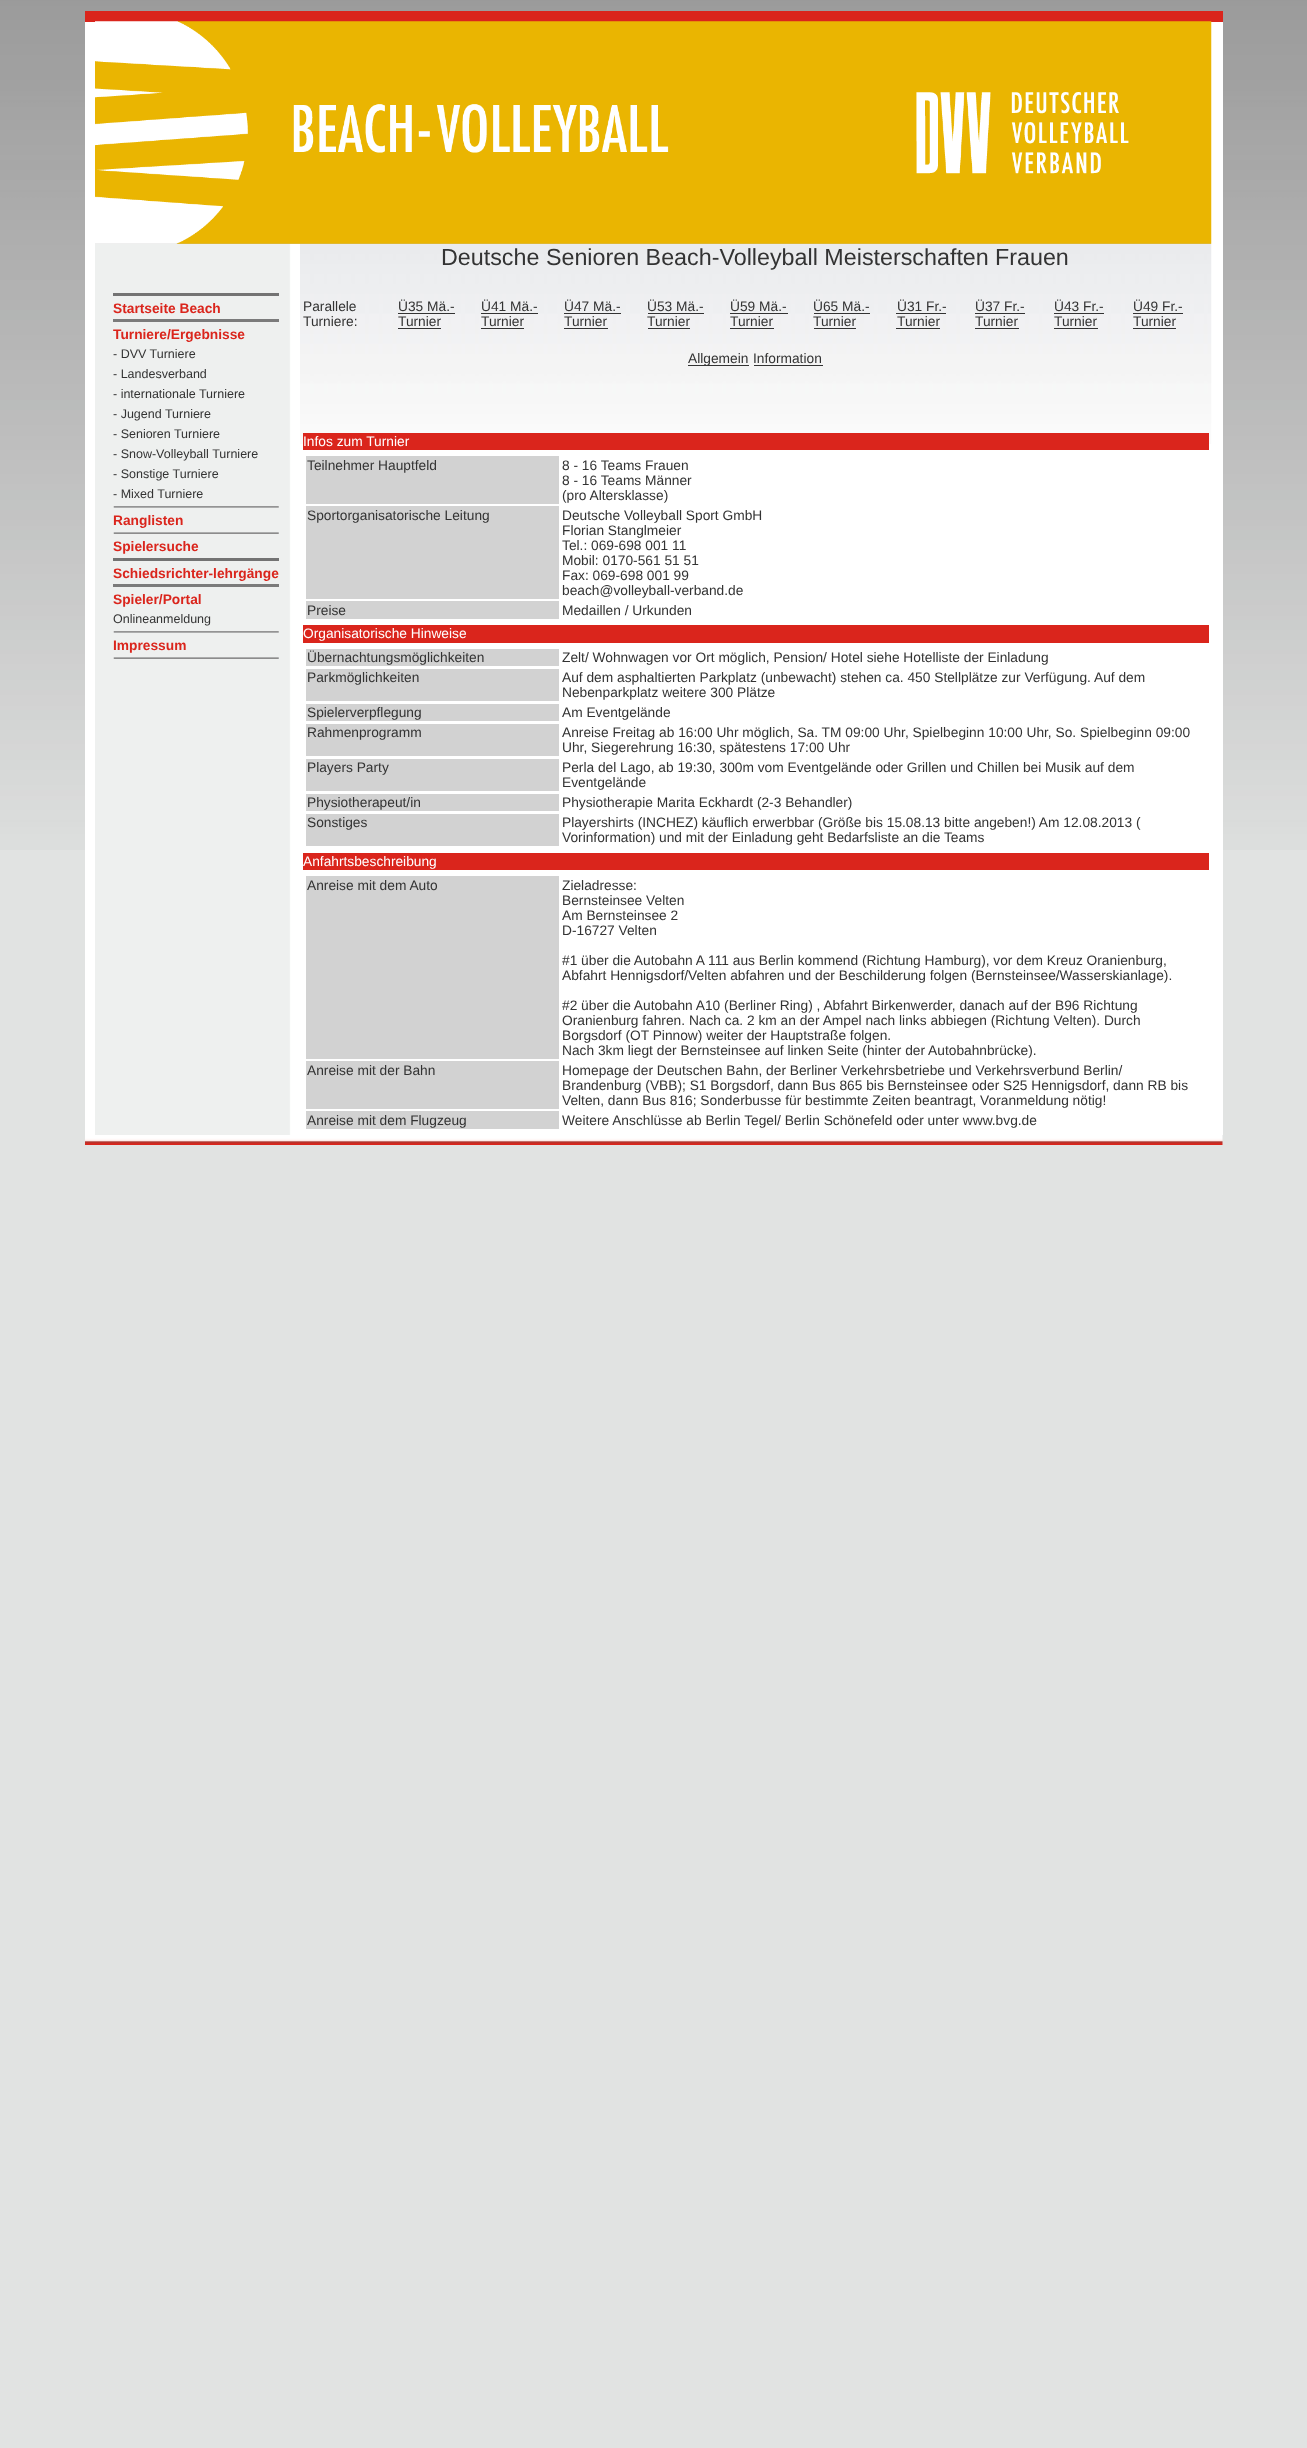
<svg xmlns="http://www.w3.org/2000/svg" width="1307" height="2448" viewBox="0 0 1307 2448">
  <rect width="100%" height="100%" fill="#e1e3e2"/>
  <image x="0" y="0" width="1307" height="850" href="img/1.png"/>
  <path d="M85 11h1138v11H85z" fill="#da251c"/>
  <path d="M85 22h10v1113H85z" fill="#fff"/>
  <path d="M1211 22h12v1113H1211z" fill="#fff"/>
  <image x="95" y="243" width="205" height="892" href="img/3.png"/>
  <image x="300" y="243" width="912" height="201" href="img/6.png"/>
  <image x="95" y="21" width="1117" height="223" href="img/2.png"/>
  <path d="M113 293h166v3H113z" fill="#737373"/>
  <path d="M113 319h166v3H113z" fill="#7b7b7b"/>
  <image x="113" y="506" width="166" height="2" href="img/4.png"/>
  <image x="113" y="532" width="166" height="2" href="img/5.png"/>
  <path d="M113 558h166v3H113z" fill="#737373"/>
  <path d="M113 584h166v3H113z" fill="#7b7b7b"/>
  <image x="113" y="631" width="166" height="2" href="img/4.png"/>
  <image x="113" y="657" width="166" height="2" href="img/5.png"/>
  <path d="M300 444h911v691H300z" fill="#fff"/>
  <path d="M398 313h57v1H398z" fill="#333"/>
  <path d="M398 328h43v1H398z" fill="#333"/>
  <path d="M481 313h57v1H481z" fill="#333"/>
  <path d="M481 328h43v1H481z" fill="#333"/>
  <path d="M564 313h57v1H564z" fill="#333"/>
  <path d="M564 328h44v1H564z" fill="#333"/>
  <path d="M648 313h56v1H648z" fill="#333"/>
  <path d="M648 328h42v1H648z" fill="#333"/>
  <path d="M730 313h58v1H730z" fill="#333"/>
  <path d="M730 328h44v1H730z" fill="#333"/>
  <path d="M814 313h56v1H814z" fill="#333"/>
  <path d="M814 328h42v1H814z" fill="#333"/>
  <path d="M896 313h50v1H896z" fill="#333"/>
  <path d="M896 328h44v1H896z" fill="#333"/>
  <path d="M975 313h50v1H975z" fill="#333"/>
  <path d="M975 328h44v1H975z" fill="#333"/>
  <path d="M1054 313h50v1H1054z" fill="#333"/>
  <path d="M1054 328h44v1H1054z" fill="#333"/>
  <path d="M1133 313h50v1H1133z" fill="#333"/>
  <path d="M1133 328h43v1H1133z" fill="#333"/>
  <path d="M688 365h61v1H688z" fill="#333"/>
  <path d="M754 365h69v1H754z" fill="#333"/>
  <path d="M303 433h906v17H303z" fill="#da251c"/>
  <path d="M306 456h253v48H306z" fill="#d2d2d2"/>
  <path d="M306 506h253v93H306z" fill="#d2d2d2"/>
  <path d="M306 601h253v18H306z" fill="#d2d2d2"/>
  <path d="M303 625h906v18H303z" fill="#da251c"/>
  <path d="M306 649h253v17H306z" fill="#d2d2d2"/>
  <path d="M306 669h253v32H306z" fill="#d2d2d2"/>
  <path d="M306 704h253v17H306z" fill="#d2d2d2"/>
  <path d="M306 724h253v32H306z" fill="#d2d2d2"/>
  <path d="M306 759h253v32H306z" fill="#d2d2d2"/>
  <path d="M306 794h253v17H306z" fill="#d2d2d2"/>
  <path d="M306 814h253v32H306z" fill="#d2d2d2"/>
  <path d="M303 853h906v17H303z" fill="#da251c"/>
  <path d="M306 876h253v183H306z" fill="#d2d2d2"/>
  <path d="M306 1061h253v48H306z" fill="#d2d2d2"/>
  <path d="M306 1111h253v18H306z" fill="#d2d2d2"/>
  <image x="85" y="1135" width="1138" height="10" href="img/7.png"/>
  <g font-family="Liberation Sans" font-size="13.75" font-weight="bold" fill="#da251c">
    <text x="113" y="313">Startseite Beach</text>
    <text x="113" y="339">Turniere/Ergebnisse</text>
  </g>
  <g font-family="Liberation Sans" font-size="12.5" fill="#333">
    <text x="113" y="358">- DVV Turniere</text>
    <text x="113" y="378">- Landesverband</text>
    <text x="113" y="398">- internationale Turniere</text>
    <text x="113" y="418">- Jugend Turniere</text>
    <text x="113" y="438">- Senioren Turniere</text>
    <text x="113" y="458">- Snow-Volleyball Turniere</text>
    <text x="113" y="478">- Sonstige Turniere</text>
    <text x="113" y="498">- Mixed Turniere</text>
  </g>
  <g font-family="Liberation Sans" font-size="13.75" font-weight="bold" fill="#da251c">
    <text x="113" y="525">Ranglisten</text>
    <text x="113" y="551">Spielersuche</text>
    <text x="113" y="578">Schiedsrichter-lehrgänge</text>
    <text x="113" y="604">Spieler/Portal</text>
  </g>
  <text x="113" y="623" font-family="Liberation Sans" font-size="12.5" fill="#333">Onlineanmeldung</text>
  <text x="113" y="650" font-family="Liberation Sans" font-size="13.75" font-weight="bold" fill="#da251c">Impressum</text>
  <g font-family="Liberation Sans" font-size="23.3" fill="#333">
    <text x="441" y="265">Deutsche Senioren Beach-Volleyball Meisterschaften</text>
    <text x="995" y="265">Frauen</text>
  </g>
  <g font-family="Liberation Sans" font-size="13.75" fill="#333">
    <text x="303" y="311">Parallele</text>
    <text x="303" y="326">Turniere:</text>
    <text x="398" y="311">Ü35 Mä.-</text>
    <text x="398" y="326">Turnier</text>
    <text x="481" y="311">Ü41 Mä.-</text>
    <text x="481" y="326">Turnier</text>
    <text x="564" y="311">Ü47 Mä.-</text>
    <text x="564" y="326">Turnier</text>
    <text x="647" y="311">Ü53 Mä.-</text>
    <text x="647" y="326">Turnier</text>
    <text x="730" y="311">Ü59 Mä.-</text>
    <text x="730" y="326">Turnier</text>
    <text x="813" y="311">Ü65 Mä.-</text>
    <text x="813" y="326">Turnier</text>
    <text x="897" y="311">Ü31 Fr.-</text>
    <text x="897" y="326">Turnier</text>
    <text x="975" y="311">Ü37 Fr.-</text>
    <text x="975" y="326">Turnier</text>
    <text x="1054" y="311">Ü43 Fr.-</text>
    <text x="1054" y="326">Turnier</text>
    <text x="1133" y="311">Ü49 Fr.-</text>
    <text x="1133" y="326">Turnier</text>
    <text x="688" y="363">Allgemein</text>
    <text x="753" y="363">Information</text>
  </g>
  <text x="303" y="446" font-family="Liberation Sans" font-size="13.75" fill="#fff">Infos zum Turnier</text>
  <g font-family="Liberation Sans" font-size="13.75" fill="#333">
    <text x="307" y="470">Teilnehmer Hauptfeld</text>
    <text x="562" y="470">8 - 16 Teams Frauen</text>
    <text x="562" y="485">8 - 16 Teams Männer</text>
    <text x="562" y="500">(pro Altersklasse)</text>
    <text x="307" y="520">Sportorganisatorische Leitung</text>
    <text x="562" y="520">Deutsche Volleyball Sport GmbH</text>
    <text x="562" y="535">Florian Stanglmeier</text>
    <text x="562" y="550">Tel.: 069-698 001 11</text>
    <text x="562" y="565">Mobil: 0170-561 51 51</text>
    <text x="562" y="580">Fax: 069-698 001 99</text>
    <text x="562" y="595">beach@volleyball-verband.de</text>
    <text x="307" y="615">Preise</text>
    <text x="562" y="615">Medaillen / Urkunden</text>
  </g>
  <text x="303" y="638" font-family="Liberation Sans" font-size="13.75" fill="#fff">Organisatorische Hinweise</text>
  <g font-family="Liberation Sans" font-size="13.75" fill="#333">
    <text x="307" y="662">Übernachtungsmöglichkeiten</text>
    <text x="562" y="662">Zelt/ Wohnwagen vor Ort möglich, Pension/ Hotel siehe Hotelliste der Einladung</text>
    <text x="307" y="682">Parkmöglichkeiten</text>
    <text x="562" y="682">Auf dem asphaltierten Parkplatz (unbewacht) stehen ca. 450 Stellplätze zur Verfügung. Auf dem</text>
    <text x="562" y="697">Nebenparkplatz weitere 300 Plätze</text>
    <text x="307" y="717">Spielerverpflegung</text>
    <text x="562" y="717">Am Eventgelände</text>
    <text x="307" y="737">Rahmenprogramm</text>
    <text x="562" y="737">Anreise Freitag ab 16:00 Uhr möglich, Sa. TM 09:00 Uhr, Spielbeginn 10:00 Uhr, So. Spielbeginn 09:00</text>
    <text x="562" y="752">Uhr, Siegerehrung 16:30, spätestens 17:00 Uhr</text>
    <text x="307" y="772">Players Party</text>
    <text x="562" y="772">Perla del Lago, ab 19:30, 300m vom Eventgelände oder Grillen und Chillen bei Musik auf dem</text>
    <text x="562" y="787">Eventgelände</text>
    <text x="307" y="807">Physiotherapeut/in</text>
    <text x="562" y="807">Physiotherapie Marita Eckhardt (2-3 Behandler)</text>
    <text x="307" y="827">Sonstiges</text>
    <text x="562" y="827">Playershirts (INCHEZ) käuflich erwerbbar (Größe bis 15.08.13 bitte angeben!) Am 12.08.2013 (</text>
    <text x="562" y="842">Vorinformation) und mit der Einladung geht Bedarfsliste an die Teams</text>
  </g>
  <text x="303" y="866" font-family="Liberation Sans" font-size="13.75" fill="#fff">Anfahrtsbeschreibung</text>
  <g font-family="Liberation Sans" font-size="13.75" fill="#333">
    <text x="307" y="890">Anreise mit dem Auto</text>
    <text x="562" y="890">Zieladresse:</text>
    <text x="562" y="905">Bernsteinsee Velten</text>
    <text x="562" y="920">Am Bernsteinsee 2</text>
    <text x="562" y="935">D-16727 Velten</text>
    <text x="562" y="965">#1 über die Autobahn A 111 aus Berlin kommend (Richtung Hamburg), vor dem Kreuz Oranienburg,</text>
    <text x="562" y="980">Abfahrt Hennigsdorf/Velten abfahren und der Beschilderung folgen (Bernsteinsee/Wasserskianlage).</text>
    <text x="562" y="1010">#2 über die Autobahn A10 (Berliner Ring) , Abfahrt Birkenwerder, danach auf der B96 Richtung</text>
    <text x="562" y="1025">Oranienburg fahren. Nach ca. 2 km an der Ampel nach links abbiegen (Richtung Velten). Durch</text>
    <text x="562" y="1040">Borgsdorf (OT Pinnow) weiter der Hauptstraße folgen.</text>
    <text x="562" y="1055">Nach 3km liegt der Bernsteinsee auf linken Seite (hinter der Autobahnbrücke).</text>
    <text x="307" y="1075">Anreise mit der Bahn</text>
    <text x="562" y="1075">Homepage der Deutschen Bahn, der Berliner Verkehrsbetriebe und Verkehrsverbund Berlin/</text>
    <text x="562" y="1090">Brandenburg (VBB); S1 Borgsdorf, dann Bus 865 bis Bernsteinsee oder S25 Hennigsdorf, dann RB bis</text>
    <text x="562" y="1105">Velten, dann Bus 816; Sonderbusse für bestimmte Zeiten beantragt, Voranmeldung nötig!</text>
    <text x="307" y="1125">Anreise mit dem Flugzeug</text>
    <text x="562" y="1125">Weitere Anschlüsse ab Berlin Tegel/ Berlin Schönefeld oder unter www.bvg.de</text>
  </g>
</svg>
